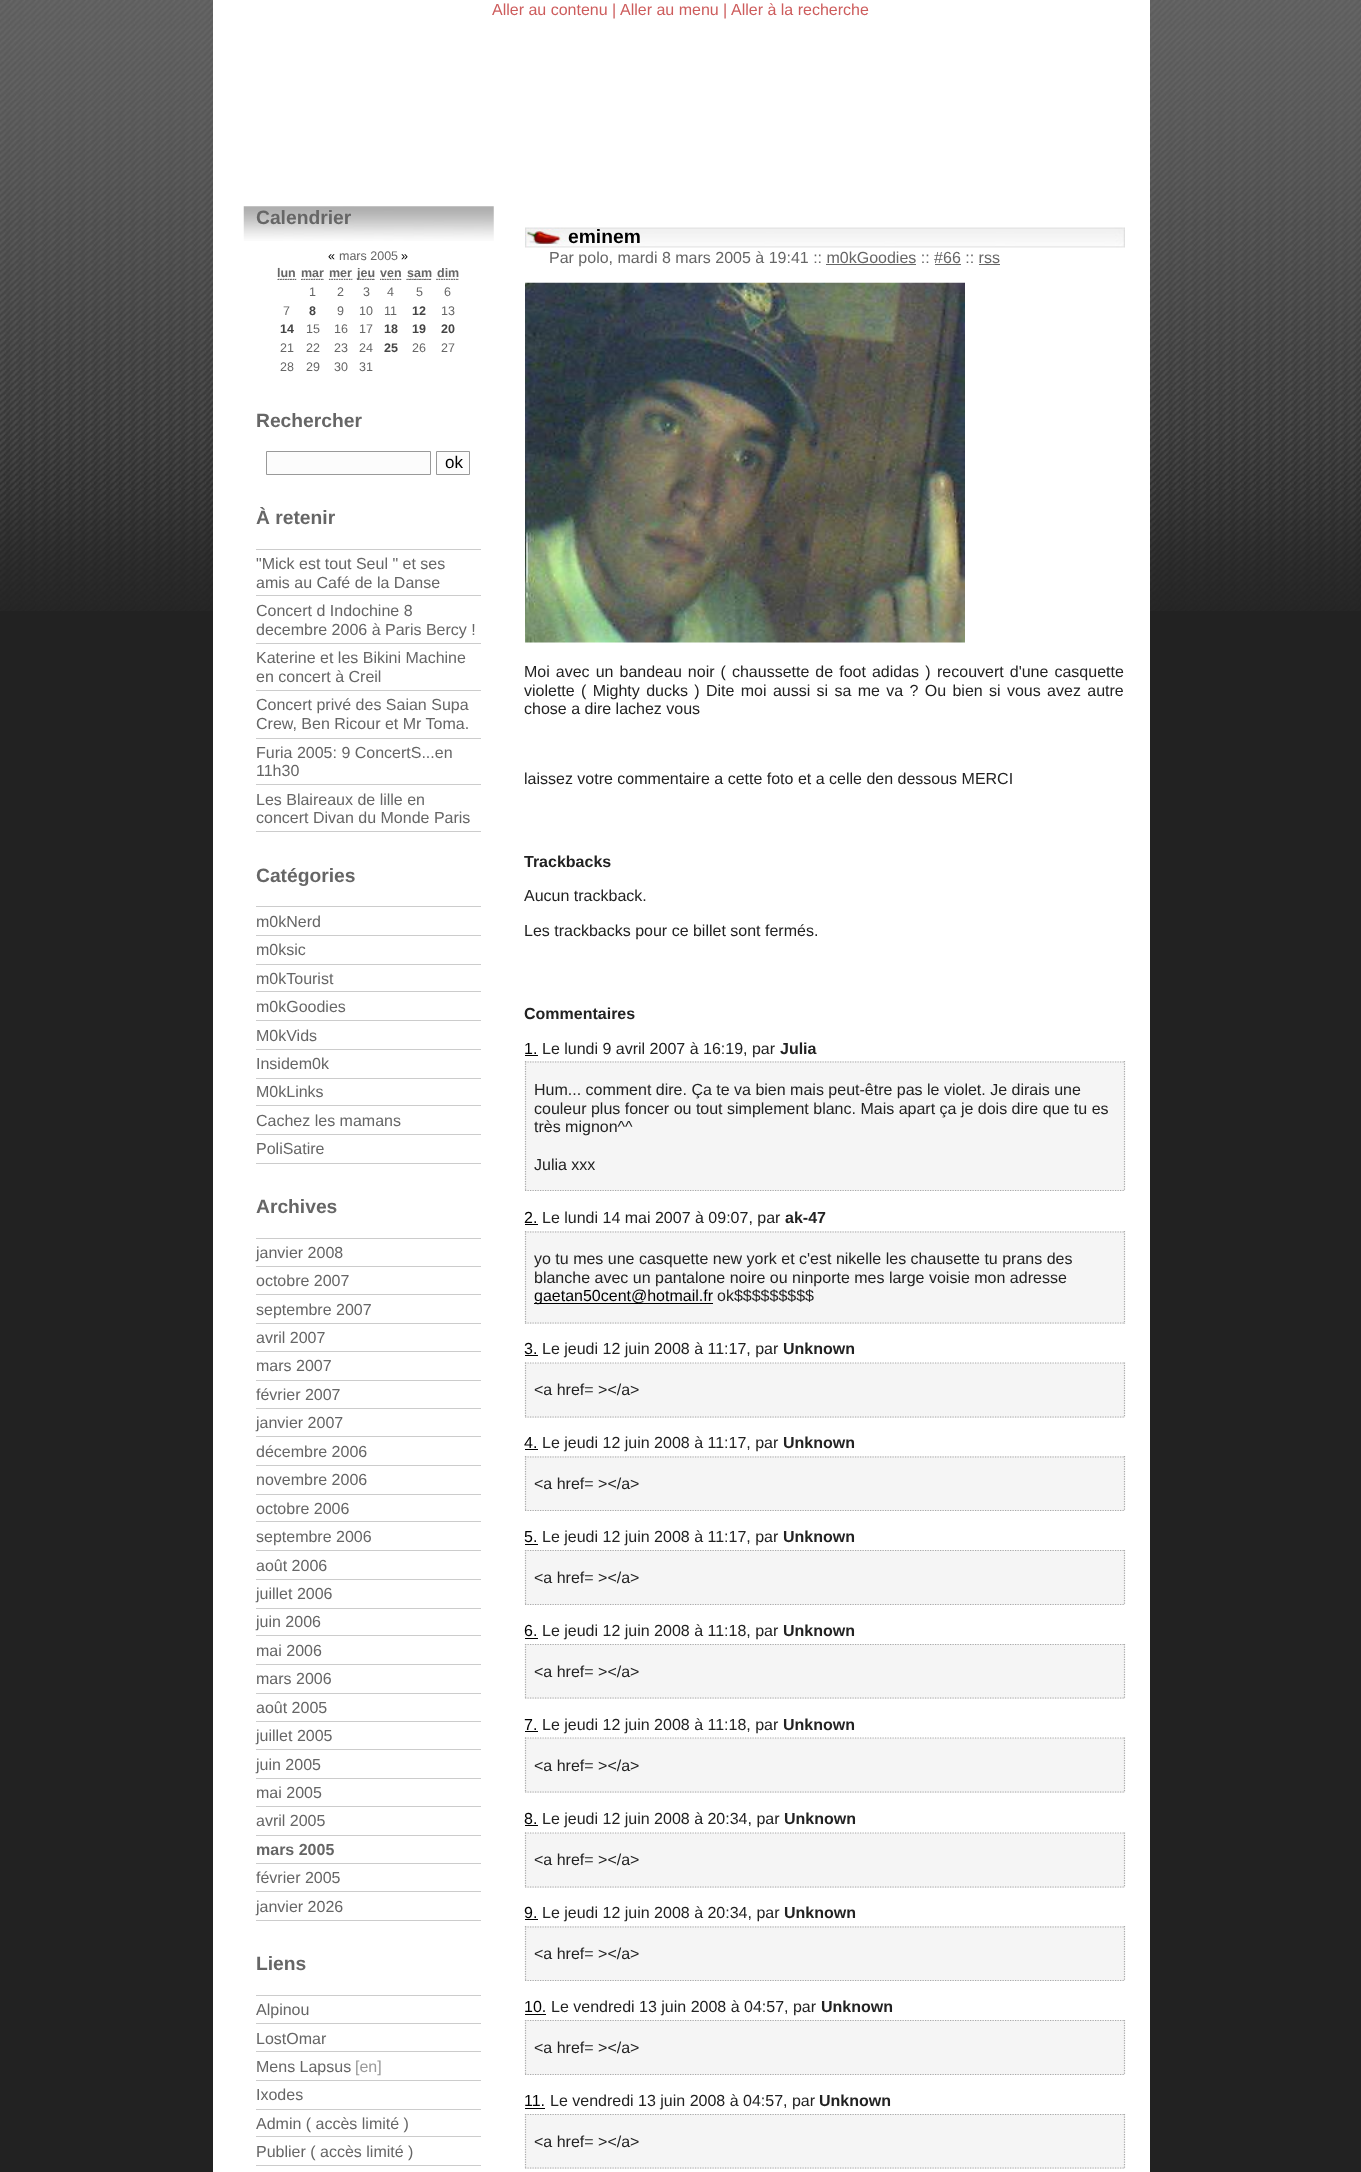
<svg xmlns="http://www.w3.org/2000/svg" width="1361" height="2172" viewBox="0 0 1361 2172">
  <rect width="100%" height="100%" fill="#222"/>
  <image x="0" y="0" width="1361" height="611" href="img/1.png"/>
  <path d="M213 0h937v2172H213z" fill="#fff"/>
  <image x="243" y="206" width="251" height="35" href="img/2.png"/>
  <image x="278" y="278" width="19" height="2" href="img/3.png"/>
  <path d="M277.5 279.5H296" fill="none" stroke="#666" stroke-width="1.2" stroke-dasharray="1.25 1.25"/>
  <image x="301" y="278" width="23" height="2" href="img/4.png"/>
  <path d="M301 279.5H324" fill="none" stroke="#666" stroke-width="1.2" stroke-dasharray="1.25 1.25"/>
  <image x="328" y="278" width="25" height="2" href="img/5.png"/>
  <path d="M329 279.5H352" fill="none" stroke="#666" stroke-width="1.2" stroke-dasharray="1.25 1.25"/>
  <image x="357" y="278" width="18" height="2" href="img/6.png"/>
  <path d="M357 279.5H375" fill="none" stroke="#666" stroke-width="1.2" stroke-dasharray="1.25 1.25"/>
  <image x="380" y="278" width="21" height="2" href="img/7.png"/>
  <path d="M380 279.5H401.5" fill="none" stroke="#666" stroke-width="1.2" stroke-dasharray="1.25 1.25"/>
  <image x="406" y="278" width="26" height="2" href="img/8.png"/>
  <path d="M406.5 279.5H431.5" fill="none" stroke="#666" stroke-width="1.2" stroke-dasharray="1.25 1.25"/>
  <image x="436" y="278" width="23" height="2" href="img/9.png"/>
  <path d="M436.5 279.5H459" fill="none" stroke="#666" stroke-width="1.2" stroke-dasharray="1.25 1.25"/>
  <path d="M266.5 451.5h164v23H266.5z" fill="#fcfcfc" stroke="#999"/>
  <path d="M436.5 451.5h33v23H436.5z" fill="#fcfcfc" stroke="#999"/>
  <path d="M256 549h225v1H256z" fill="#ccc"/>
  <path d="M256 595h225v1H256z" fill="#ccc"/>
  <path d="M256 643h225v1H256z" fill="#ccc"/>
  <path d="M256 690h225v1H256z" fill="#ccc"/>
  <path d="M256 738h225v1H256z" fill="#ccc"/>
  <path d="M256 784h225v1H256z" fill="#ccc"/>
  <path d="M256 831h225v1H256z" fill="#ccc"/>
  <path d="M256 906h225v1H256z" fill="#ccc"/>
  <path d="M256 935h225v1H256z" fill="#ccc"/>
  <path d="M256 964h225v1H256z" fill="#ccc"/>
  <path d="M256 991h225v1H256z" fill="#ccc"/>
  <path d="M256 1020h225v1H256z" fill="#ccc"/>
  <path d="M256 1049h225v1H256z" fill="#ccc"/>
  <path d="M256 1078h225v1H256z" fill="#ccc"/>
  <path d="M256 1105h225v1H256z" fill="#ccc"/>
  <path d="M256 1134h225v1H256z" fill="#ccc"/>
  <path d="M256 1163h225v1H256z" fill="#ccc"/>
  <path d="M256 1238h225v1H256z" fill="#ccc"/>
  <path d="M256 1266h225v1H256z" fill="#ccc"/>
  <path d="M256 1294h225v1H256z" fill="#ccc"/>
  <path d="M256 1323h225v1H256z" fill="#ccc"/>
  <path d="M256 1351h225v1H256z" fill="#ccc"/>
  <path d="M256 1380h225v1H256z" fill="#ccc"/>
  <path d="M256 1408h225v1H256z" fill="#ccc"/>
  <path d="M256 1436h225v1H256z" fill="#ccc"/>
  <path d="M256 1465h225v1H256z" fill="#ccc"/>
  <path d="M256 1494h225v1H256z" fill="#ccc"/>
  <path d="M256 1521h225v1H256z" fill="#ccc"/>
  <path d="M256 1550h225v1H256z" fill="#ccc"/>
  <path d="M256 1579h225v1H256z" fill="#ccc"/>
  <path d="M256 1608h225v1H256z" fill="#ccc"/>
  <path d="M256 1635h225v1H256z" fill="#ccc"/>
  <path d="M256 1664h225v1H256z" fill="#ccc"/>
  <path d="M256 1693h225v1H256z" fill="#ccc"/>
  <path d="M256 1721h225v1H256z" fill="#ccc"/>
  <path d="M256 1749h225v1H256z" fill="#ccc"/>
  <path d="M256 1778h225v1H256z" fill="#ccc"/>
  <path d="M256 1806h225v1H256z" fill="#ccc"/>
  <path d="M256 1835h225v1H256z" fill="#ccc"/>
  <path d="M256 1863h225v1H256z" fill="#ccc"/>
  <path d="M256 1891h225v1H256z" fill="#ccc"/>
  <path d="M256 1920h225v1H256z" fill="#ccc"/>
  <path d="M256 1995h225v1H256z" fill="#ccc"/>
  <path d="M256 2023h225v1H256z" fill="#ccc"/>
  <path d="M256 2051h225v1H256z" fill="#ccc"/>
  <path d="M256 2080h225v1H256z" fill="#ccc"/>
  <path d="M256 2109h225v1H256z" fill="#ccc"/>
  <path d="M256 2136h225v1H256z" fill="#ccc"/>
  <path d="M256 2165h225v1H256z" fill="#ccc"/>
  <image x="525" y="227" width="600" height="21" href="img/10.png"/>
  <path d="M826 264h90v1H826z" fill="#666"/>
  <path d="M935 264h26v1H935z" fill="#666"/>
  <path d="M979 264h21v1H979z" fill="#666"/>
  <image x="525" y="282" width="440" height="361" href="img/11.png"/>
  <path d="M525 1055h13v1H525z" fill="#000"/>
  <path d="M525 1061h600v130H525z" fill="#f5f5f5"/>
  <path d="M525 1062H1125" fill="none" stroke="#aaa" stroke-width="1.2" stroke-dasharray="1.25 1.25"/>
  <path d="M1124.5 1061V1191" fill="none" stroke="#aaa" stroke-width="1.2" stroke-dasharray="1.25 1.25"/>
  <path d="M525 1190.5H1125" fill="none" stroke="#aaa" stroke-width="1.2" stroke-dasharray="1.25 1.25"/>
  <path d="M525.5 1061V1191" fill="none" stroke="#aaa" stroke-width="1.2" stroke-dasharray="1.25 1.25"/>
  <path d="M525 1224h13v1H525z" fill="#000"/>
  <path d="M525 1231h600v93H525z" fill="#f5f5f5"/>
  <path d="M525 1232H1125" fill="none" stroke="#aaa" stroke-width="1.2" stroke-dasharray="1.25 1.25"/>
  <path d="M1124.5 1231V1324" fill="none" stroke="#aaa" stroke-width="1.2" stroke-dasharray="1.25 1.25"/>
  <path d="M525 1323H1125" fill="none" stroke="#aaa" stroke-width="1.2" stroke-dasharray="1.25 1.25"/>
  <path d="M525.5 1231V1324" fill="none" stroke="#aaa" stroke-width="1.2" stroke-dasharray="1.25 1.25"/>
  <path d="M534 1303h179v1H534z" fill="#000"/>
  <path d="M525 1355h13v1H525z" fill="#000"/>
  <path d="M525 1363h600v55H525z" fill="#f5f5f5"/>
  <path d="M525 1363H1125" fill="none" stroke="#aaa" stroke-width="1.2" stroke-dasharray="1.25 1.25"/>
  <path d="M1124.5 1362.5V1417.5" fill="none" stroke="#aaa" stroke-width="1.2" stroke-dasharray="1.25 1.25"/>
  <path d="M525 1417H1125" fill="none" stroke="#aaa" stroke-width="1.2" stroke-dasharray="1.25 1.25"/>
  <path d="M525.5 1362.5V1417.5" fill="none" stroke="#aaa" stroke-width="1.2" stroke-dasharray="1.25 1.25"/>
  <path d="M525 1449h13v1H525z" fill="#000"/>
  <path d="M525 1456h600v55H525z" fill="#f5f5f5"/>
  <path d="M525 1457H1125" fill="none" stroke="#aaa" stroke-width="1.2" stroke-dasharray="1.25 1.25"/>
  <path d="M1124.5 1456V1511" fill="none" stroke="#aaa" stroke-width="1.2" stroke-dasharray="1.25 1.25"/>
  <path d="M525 1510.5H1125" fill="none" stroke="#aaa" stroke-width="1.2" stroke-dasharray="1.25 1.25"/>
  <path d="M525.5 1456V1511" fill="none" stroke="#aaa" stroke-width="1.2" stroke-dasharray="1.25 1.25"/>
  <path d="M525 1544h13v1H525z" fill="#000"/>
  <path d="M525 1550h600v55H525z" fill="#f5f5f5"/>
  <path d="M525 1550.5H1125" fill="none" stroke="#aaa" stroke-width="1.2" stroke-dasharray="1.25 1.25"/>
  <path d="M1124.5 1550V1605" fill="none" stroke="#aaa" stroke-width="1.2" stroke-dasharray="1.25 1.25"/>
  <path d="M525 1604.5H1125" fill="none" stroke="#aaa" stroke-width="1.2" stroke-dasharray="1.25 1.25"/>
  <path d="M525.5 1550V1605" fill="none" stroke="#aaa" stroke-width="1.2" stroke-dasharray="1.25 1.25"/>
  <path d="M525 1638h13v1H525z" fill="#000"/>
  <path d="M525 1644h600v55H525z" fill="#f5f5f5"/>
  <path d="M525 1644.5H1125" fill="none" stroke="#aaa" stroke-width="1.2" stroke-dasharray="1.25 1.25"/>
  <path d="M1124.5 1644V1699" fill="none" stroke="#aaa" stroke-width="1.2" stroke-dasharray="1.25 1.25"/>
  <path d="M525 1698H1125" fill="none" stroke="#aaa" stroke-width="1.2" stroke-dasharray="1.25 1.25"/>
  <path d="M525.5 1644V1699" fill="none" stroke="#aaa" stroke-width="1.2" stroke-dasharray="1.25 1.25"/>
  <path d="M525 1731h13v1H525z" fill="#000"/>
  <path d="M525 1738h600v55H525z" fill="#f5f5f5"/>
  <path d="M525 1738H1125" fill="none" stroke="#aaa" stroke-width="1.2" stroke-dasharray="1.25 1.25"/>
  <path d="M1124.5 1737.5V1792.5" fill="none" stroke="#aaa" stroke-width="1.2" stroke-dasharray="1.25 1.25"/>
  <path d="M525 1792H1125" fill="none" stroke="#aaa" stroke-width="1.2" stroke-dasharray="1.25 1.25"/>
  <path d="M525.5 1737.5V1792.5" fill="none" stroke="#aaa" stroke-width="1.2" stroke-dasharray="1.25 1.25"/>
  <path d="M525 1825h13v1H525z" fill="#000"/>
  <path d="M525 1833h600v55H525z" fill="#f5f5f5"/>
  <path d="M525 1833H1125" fill="none" stroke="#aaa" stroke-width="1.2" stroke-dasharray="1.25 1.25"/>
  <path d="M1124.5 1832.5V1887.5" fill="none" stroke="#aaa" stroke-width="1.2" stroke-dasharray="1.25 1.25"/>
  <path d="M525 1887H1125" fill="none" stroke="#aaa" stroke-width="1.2" stroke-dasharray="1.25 1.25"/>
  <path d="M525.5 1832.5V1887.5" fill="none" stroke="#aaa" stroke-width="1.2" stroke-dasharray="1.25 1.25"/>
  <path d="M525 1919h13v1H525z" fill="#000"/>
  <path d="M525 1926h600v55H525z" fill="#f5f5f5"/>
  <path d="M525 1927H1125" fill="none" stroke="#aaa" stroke-width="1.2" stroke-dasharray="1.25 1.25"/>
  <path d="M1124.5 1926V1981" fill="none" stroke="#aaa" stroke-width="1.2" stroke-dasharray="1.25 1.25"/>
  <path d="M525 1980.5H1125" fill="none" stroke="#aaa" stroke-width="1.2" stroke-dasharray="1.25 1.25"/>
  <path d="M525.5 1926V1981" fill="none" stroke="#aaa" stroke-width="1.2" stroke-dasharray="1.25 1.25"/>
  <path d="M525 2014h21v1H525z" fill="#000"/>
  <path d="M525 2020h600v55H525z" fill="#f5f5f5"/>
  <path d="M525 2020.5H1125" fill="none" stroke="#aaa" stroke-width="1.2" stroke-dasharray="1.25 1.25"/>
  <path d="M1124.5 2020V2075" fill="none" stroke="#aaa" stroke-width="1.2" stroke-dasharray="1.25 1.25"/>
  <path d="M525 2074.5H1125" fill="none" stroke="#aaa" stroke-width="1.2" stroke-dasharray="1.25 1.25"/>
  <path d="M525.5 2020V2075" fill="none" stroke="#aaa" stroke-width="1.2" stroke-dasharray="1.25 1.25"/>
  <path d="M525 2108h20v1H525z" fill="#000"/>
  <path d="M525 2114h600v55H525z" fill="#f5f5f5"/>
  <path d="M525 2114.5H1125" fill="none" stroke="#aaa" stroke-width="1.2" stroke-dasharray="1.25 1.25"/>
  <path d="M1124.5 2114V2169" fill="none" stroke="#aaa" stroke-width="1.2" stroke-dasharray="1.25 1.25"/>
  <path d="M525 2168H1125" fill="none" stroke="#aaa" stroke-width="1.2" stroke-dasharray="1.25 1.25"/>
  <path d="M525.5 2114V2169" fill="none" stroke="#aaa" stroke-width="1.2" stroke-dasharray="1.25 1.25"/>
  <g font-family="Liberation Sans" font-size="16" fill="#cd5c5c">
    <text x="492" y="15">Aller au contenu</text>
    <text x="612" y="15">|</text>
    <text x="620" y="15">Aller au menu</text>
    <text x="723" y="15">|</text>
    <text x="731" y="15">Aller à la recherche</text>
  </g>
  <text x="256" y="224" font-family="Liberation Sans" font-size="19.25" font-weight="bold" fill="#666">Calendrier</text>
  <text x="328" y="260" font-family="Liberation Sans" font-size="12.5" fill="#000">«</text>
  <text x="339" y="260" font-family="Liberation Sans" font-size="12.5" fill="#666">mars 2005</text>
  <text x="401" y="260" font-family="Liberation Sans" font-size="12.5" fill="#000">»</text>
  <g font-family="Liberation Sans" font-size="12.5" font-weight="bold" fill="#666">
    <text x="277" y="277">lun</text>
    <text x="301" y="277">mar</text>
    <text x="329" y="277">mer</text>
    <text x="357" y="277">jeu</text>
    <text x="380" y="277">ven</text>
    <text x="407" y="277">sam</text>
    <text x="437" y="277">dim</text>
  </g>
  <g font-family="Liberation Sans" font-size="12.5" fill="#666">
    <text x="309" y="296">1</text>
    <text x="337" y="296">2</text>
    <text x="363" y="296">3</text>
    <text x="387" y="296">4</text>
    <text x="416" y="296">5</text>
    <text x="444" y="296">6</text>
    <text x="283" y="315">7</text>
  </g>
  <text x="309" y="315" font-family="Liberation Sans" font-size="12.5" font-weight="bold" fill="#444">8</text>
  <g font-family="Liberation Sans" font-size="12.5" fill="#666">
    <text x="337" y="315">9</text>
    <text x="359" y="315">10</text>
    <text x="384" y="315">11</text>
  </g>
  <text x="412" y="315" font-family="Liberation Sans" font-size="12.5" font-weight="bold" fill="#444">12</text>
  <text x="441" y="315" font-family="Liberation Sans" font-size="12.5" fill="#666">13</text>
  <text x="280" y="333" font-family="Liberation Sans" font-size="12.5" font-weight="bold" fill="#444">14</text>
  <g font-family="Liberation Sans" font-size="12.5" fill="#666">
    <text x="306" y="333">15</text>
    <text x="334" y="333">16</text>
    <text x="359" y="333">17</text>
  </g>
  <g font-family="Liberation Sans" font-size="12.5" font-weight="bold" fill="#444">
    <text x="384" y="333">18</text>
    <text x="412" y="333">19</text>
    <text x="441" y="333">20</text>
  </g>
  <g font-family="Liberation Sans" font-size="12.5" fill="#666">
    <text x="280" y="352">21</text>
    <text x="306" y="352">22</text>
    <text x="334" y="352">23</text>
    <text x="359" y="352">24</text>
  </g>
  <text x="384" y="352" font-family="Liberation Sans" font-size="12.5" font-weight="bold" fill="#444">25</text>
  <g font-family="Liberation Sans" font-size="12.5" fill="#666">
    <text x="412" y="352">26</text>
    <text x="441" y="352">27</text>
    <text x="280" y="371">28</text>
    <text x="306" y="371">29</text>
    <text x="334" y="371">30</text>
    <text x="359" y="371">31</text>
  </g>
  <text x="256" y="427" font-family="Liberation Sans" font-size="19.25" font-weight="bold" fill="#666">Rechercher</text>
  <text x="445" y="468" font-family="Liberation Sans" font-size="17" fill="#000">ok</text>
  <text x="256" y="524" font-family="Liberation Sans" font-size="19.25" font-weight="bold" fill="#666">À retenir</text>
  <g font-family="Liberation Sans" font-size="16" fill="#666">
    <text x="256" y="569">"Mick est tout Seul " et ses</text>
    <text x="256" y="588">amis au Café de la Danse</text>
    <text x="256" y="616">Concert d Indochine 8</text>
    <text x="256" y="635">decembre 2006 à Paris Bercy !</text>
    <text x="256" y="663">Katerine et les Bikini Machine</text>
    <text x="256" y="682">en concert à Creil</text>
    <text x="256" y="710">Concert privé des Saian Supa</text>
    <text x="256" y="729">Crew, Ben Ricour et Mr Toma.</text>
    <text x="256" y="758">Furia 2005: 9 ConcertS...en</text>
    <text x="256" y="776">11h30</text>
    <text x="256" y="805">Les Blaireaux de lille en</text>
    <text x="256" y="823">concert Divan du Monde Paris</text>
  </g>
  <text x="256" y="882" font-family="Liberation Sans" font-size="19.25" font-weight="bold" fill="#666">Catégories</text>
  <g font-family="Liberation Sans" font-size="16" fill="#666">
    <text x="256" y="927">m0kNerd</text>
    <text x="256" y="955">m0ksic</text>
    <text x="256" y="984">m0kTourist</text>
    <text x="256" y="1012">m0kGoodies</text>
    <text x="256" y="1041">M0kVids</text>
    <text x="256" y="1069">Insidem0k</text>
    <text x="256" y="1097">M0kLinks</text>
    <text x="256" y="1126">Cachez les mamans</text>
    <text x="256" y="1154">PoliSatire</text>
  </g>
  <text x="256" y="1213" font-family="Liberation Sans" font-size="19.25" font-weight="bold" fill="#666">Archives</text>
  <g font-family="Liberation Sans" font-size="16" fill="#666">
    <text x="256" y="1258">janvier 2008</text>
    <text x="256" y="1286">octobre 2007</text>
    <text x="256" y="1315">septembre 2007</text>
    <text x="256" y="1343">avril 2007</text>
    <text x="256" y="1371">mars 2007</text>
    <text x="256" y="1400">février 2007</text>
    <text x="256" y="1428">janvier 2007</text>
    <text x="256" y="1457">décembre 2006</text>
    <text x="256" y="1485">novembre 2006</text>
    <text x="256" y="1514">octobre 2006</text>
    <text x="256" y="1542">septembre 2006</text>
    <text x="256" y="1571">août 2006</text>
    <text x="256" y="1599">juillet 2006</text>
    <text x="256" y="1627">juin 2006</text>
    <text x="256" y="1656">mai 2006</text>
    <text x="256" y="1684">mars 2006</text>
    <text x="256" y="1713">août 2005</text>
    <text x="256" y="1741">juillet 2005</text>
    <text x="256" y="1770">juin 2005</text>
    <text x="256" y="1798">mai 2005</text>
    <text x="256" y="1826">avril 2005</text>
  </g>
  <text x="256" y="1855" font-family="Liberation Sans" font-size="16" font-weight="bold" fill="#666">mars 2005</text>
  <g font-family="Liberation Sans" font-size="16" fill="#666">
    <text x="256" y="1883">février 2005</text>
    <text x="256" y="1912">janvier 2026</text>
  </g>
  <text x="256" y="1970" font-family="Liberation Sans" font-size="19.25" font-weight="bold" fill="#666">Liens</text>
  <g font-family="Liberation Sans" font-size="16" fill="#666">
    <text x="256" y="2015">Alpinou</text>
    <text x="256" y="2044">LostOmar</text>
    <text x="256" y="2072">Mens Lapsus</text>
  </g>
  <text x="355" y="2072" font-family="Liberation Sans" font-size="16" fill="#999">[en]</text>
  <g font-family="Liberation Sans" font-size="16" fill="#666">
    <text x="256" y="2100">Ixodes</text>
    <text x="256" y="2129">Admin ( accès limité )</text>
    <text x="256" y="2157">Publier ( accès limité )</text>
  </g>
  <text x="568" y="243" font-family="Liberation Sans" font-size="19.25" font-weight="bold" fill="#000">eminem</text>
  <text x="549" y="263" font-family="Liberation Sans" font-size="16" fill="#666">Par polo, mardi 8 mars 2005 à 19:41 :: m0kGoodies :: #66 :: rss</text>
  <g font-family="Liberation Sans" font-size="16" fill="#222">
    <text x="524" y="677" word-spacing="1.6">Moi avec un bandeau noir ( chaussette de foot adidas )</text>
    <text x="937" y="677" word-spacing="1.6">recouvert d'une casquette</text>
    <text x="524" y="696">violette</text>
    <text x="581" y="696" word-spacing="1.9">( Mighty ducks ) Dite moi aussi si sa me va ? Ou bien si vous avez autre</text>
    <text x="524" y="714">chose a dire lachez vous</text>
    <text x="524" y="784">laissez votre commentaire a cette foto et a celle den dessous MERCI</text>
  </g>
  <text x="524" y="867" font-family="Liberation Sans" font-size="16" font-weight="bold" fill="#222">Trackbacks</text>
  <g font-family="Liberation Sans" font-size="16" fill="#222">
    <text x="524" y="901">Aucun trackback.</text>
    <text x="524" y="936">Les trackbacks pour ce billet sont fermés.</text>
  </g>
  <text x="524" y="1019" font-family="Liberation Sans" font-size="16" font-weight="bold" fill="#222">Commentaires</text>
  <text x="524" y="1054" font-family="Liberation Sans" font-size="16" fill="#000">1.</text>
  <text x="542" y="1054" font-family="Liberation Sans" font-size="16" fill="#222">Le lundi 9 avril 2007 à 16:19, par</text>
  <text x="780" y="1054" font-family="Liberation Sans" font-size="16" font-weight="bold" fill="#222">Julia</text>
  <g font-family="Liberation Sans" font-size="16" fill="#222">
    <text x="534" y="1095">Hum... comment dire. Ça te va bien mais peut-être pas le violet. Je dirais une</text>
    <text x="534" y="1114">couleur plus foncer ou tout simplement blanc. Mais apart ça je dois dire que tu es</text>
    <text x="534" y="1132">très mignon^^</text>
    <text x="534" y="1170">Julia xxx</text>
  </g>
  <text x="524" y="1223" font-family="Liberation Sans" font-size="16" fill="#000">2.</text>
  <text x="542" y="1223" font-family="Liberation Sans" font-size="16" fill="#222">Le lundi 14 mai 2007 à 09:07, par</text>
  <text x="785" y="1223" font-family="Liberation Sans" font-size="16" font-weight="bold" fill="#222">ak-47</text>
  <g font-family="Liberation Sans" font-size="16" fill="#222">
    <text x="534" y="1264">yo tu mes une casquette new york et c'est nikelle les chausette tu prans des</text>
    <text x="534" y="1283">blanche avec un pantalone noire ou ninporte mes large voisie mon adresse</text>
  </g>
  <text x="534" y="1301" font-family="Liberation Sans" font-size="16" fill="#000">gaetan50cent@hotmail.fr</text>
  <text x="717" y="1301" font-family="Liberation Sans" font-size="16" fill="#222">ok$$$$$$$$$</text>
  <text x="524" y="1354" font-family="Liberation Sans" font-size="16" fill="#000">3.</text>
  <text x="542" y="1354" font-family="Liberation Sans" font-size="16" fill="#222">Le jeudi 12 juin 2008 à 11:17, par</text>
  <text x="783" y="1354" font-family="Liberation Sans" font-size="16" font-weight="bold" fill="#222">Unknown</text>
  <text x="534" y="1395" font-family="Liberation Sans" font-size="16" fill="#222">&lt;a href= &gt;&lt;/a&gt;</text>
  <text x="524" y="1448" font-family="Liberation Sans" font-size="16" fill="#000">4.</text>
  <text x="542" y="1448" font-family="Liberation Sans" font-size="16" fill="#222">Le jeudi 12 juin 2008 à 11:17, par</text>
  <text x="783" y="1448" font-family="Liberation Sans" font-size="16" font-weight="bold" fill="#222">Unknown</text>
  <text x="534" y="1489" font-family="Liberation Sans" font-size="16" fill="#222">&lt;a href= &gt;&lt;/a&gt;</text>
  <text x="524" y="1542" font-family="Liberation Sans" font-size="16" fill="#000">5.</text>
  <text x="542" y="1542" font-family="Liberation Sans" font-size="16" fill="#222">Le jeudi 12 juin 2008 à 11:17, par</text>
  <text x="783" y="1542" font-family="Liberation Sans" font-size="16" font-weight="bold" fill="#222">Unknown</text>
  <text x="534" y="1583" font-family="Liberation Sans" font-size="16" fill="#222">&lt;a href= &gt;&lt;/a&gt;</text>
  <text x="524" y="1636" font-family="Liberation Sans" font-size="16" fill="#000">6.</text>
  <text x="542" y="1636" font-family="Liberation Sans" font-size="16" fill="#222">Le jeudi 12 juin 2008 à 11:18, par</text>
  <text x="783" y="1636" font-family="Liberation Sans" font-size="16" font-weight="bold" fill="#222">Unknown</text>
  <text x="534" y="1677" font-family="Liberation Sans" font-size="16" fill="#222">&lt;a href= &gt;&lt;/a&gt;</text>
  <text x="524" y="1730" font-family="Liberation Sans" font-size="16" fill="#000">7.</text>
  <text x="542" y="1730" font-family="Liberation Sans" font-size="16" fill="#222">Le jeudi 12 juin 2008 à 11:18, par</text>
  <text x="783" y="1730" font-family="Liberation Sans" font-size="16" font-weight="bold" fill="#222">Unknown</text>
  <text x="534" y="1771" font-family="Liberation Sans" font-size="16" fill="#222">&lt;a href= &gt;&lt;/a&gt;</text>
  <text x="524" y="1824" font-family="Liberation Sans" font-size="16" fill="#000">8.</text>
  <text x="542" y="1824" font-family="Liberation Sans" font-size="16" fill="#222">Le jeudi 12 juin 2008 à 20:34, par</text>
  <text x="784" y="1824" font-family="Liberation Sans" font-size="16" font-weight="bold" fill="#222">Unknown</text>
  <text x="534" y="1865" font-family="Liberation Sans" font-size="16" fill="#222">&lt;a href= &gt;&lt;/a&gt;</text>
  <text x="524" y="1918" font-family="Liberation Sans" font-size="16" fill="#000">9.</text>
  <text x="542" y="1918" font-family="Liberation Sans" font-size="16" fill="#222">Le jeudi 12 juin 2008 à 20:34, par</text>
  <text x="784" y="1918" font-family="Liberation Sans" font-size="16" font-weight="bold" fill="#222">Unknown</text>
  <text x="534" y="1959" font-family="Liberation Sans" font-size="16" fill="#222">&lt;a href= &gt;&lt;/a&gt;</text>
  <text x="524" y="2012" font-family="Liberation Sans" font-size="16" fill="#000">10.</text>
  <text x="551" y="2012" font-family="Liberation Sans" font-size="16" fill="#222">Le vendredi 13 juin 2008 à 04:57, par</text>
  <text x="821" y="2012" font-family="Liberation Sans" font-size="16" font-weight="bold" fill="#222">Unknown</text>
  <text x="534" y="2053" font-family="Liberation Sans" font-size="16" fill="#222">&lt;a href= &gt;&lt;/a&gt;</text>
  <text x="524" y="2106" font-family="Liberation Sans" font-size="16" fill="#000">11.</text>
  <text x="550" y="2106" font-family="Liberation Sans" font-size="16" fill="#222">Le vendredi 13 juin 2008 à 04:57, par</text>
  <text x="819" y="2106" font-family="Liberation Sans" font-size="16" font-weight="bold" fill="#222">Unknown</text>
  <text x="534" y="2147" font-family="Liberation Sans" font-size="16" fill="#222">&lt;a href= &gt;&lt;/a&gt;</text>
</svg>
